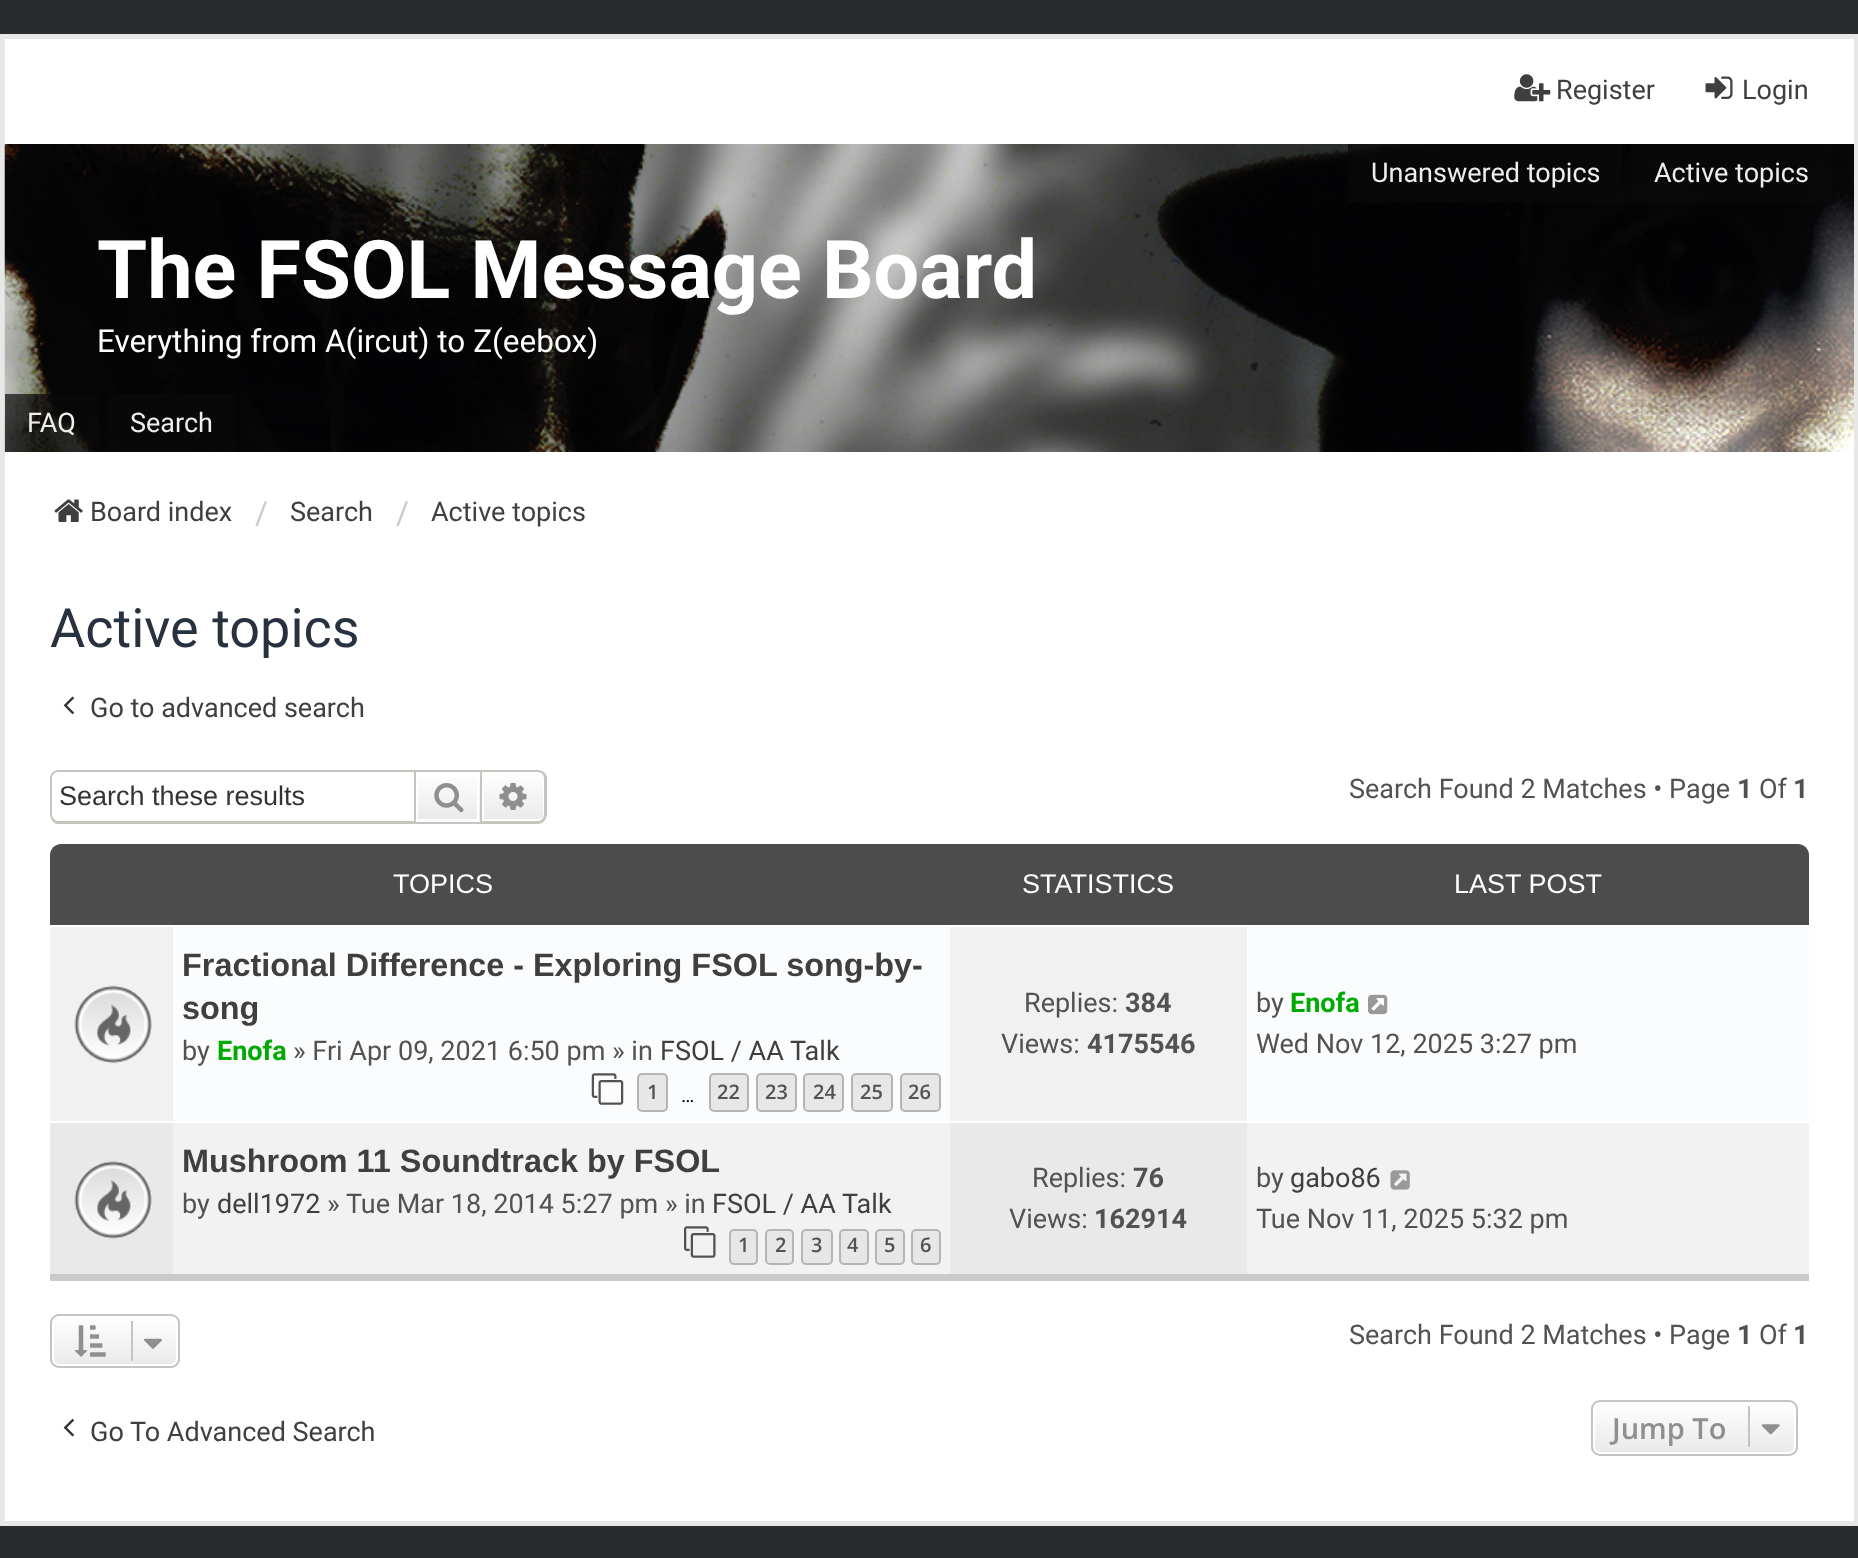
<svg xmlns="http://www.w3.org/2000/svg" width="1858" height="1558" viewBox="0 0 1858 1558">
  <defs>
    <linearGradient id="g1" gradientUnits="userSpaceOnUse" x1="448" y1="772" x2="448" y2="821"><stop offset="0" stop-color="#fff"/><stop offset="1" stop-color="#e9e9e9"/></linearGradient>
    <linearGradient id="g2" gradientUnits="userSpaceOnUse" x1="513" y1="772" x2="513" y2="821"><stop offset="0" stop-color="#fff"/><stop offset="1" stop-color="#e9e9e9"/></linearGradient>
    <clipPath id="clip1"><rect x="50" y="1314" width="130" height="54" rx="9"/></clipPath>
    <linearGradient id="g3" gradientUnits="userSpaceOnUse" x1="115" y1="1316" x2="115" y2="1366"><stop offset="0" stop-color="#fff"/><stop offset="1" stop-color="#e9e9e9"/></linearGradient>
    <clipPath id="clip2"><rect x="1591" y="1400" width="207" height="56" rx="9"/></clipPath>
    <linearGradient id="g4" gradientUnits="userSpaceOnUse" x1="1694" y1="1402" x2="1694" y2="1454"><stop offset="0" stop-color="#fff"/><stop offset="1" stop-color="#e9e9e9"/></linearGradient>
  </defs>
  <rect width="100%" height="100%" fill="#282c2f"/>
  <path d="M5 39h1849v105H5z" fill="#fff"/>
  <path d="M0 34h1858v5H0z" fill="#e7e7e7"/>
  <path d="M1854 34h4v1492H1854z" fill="#e7e7e7"/>
  <path d="M0 34h5v418H0z" fill="#e7e7e7"/>
  <image x="1514" y="74" width="37" height="28" href="img/1.png"/>
  <image x="1705" y="76" width="28" height="23" href="img/2.png"/>
  <image x="4" y="144" width="1850" height="308" href="img/3.png"/>
  <path d="M1348 144h274v59H1348z" fill="#0a0a0ab3"/>
  <path d="M1631 144h201v59H1631z" fill="#0a0a0ab3"/>
  <path d="M5 394h94v58H5z" fill="#0a0a0ab3"/>
  <path d="M108 394h128v58H108z" fill="#0a0a0ab3"/>
  <path d="M5 452h1849v1069H5z" fill="#fff"/>
  <path d="M0 1521h1858v5H0z" fill="#e7e7e7"/>
  <path d="M0 452h5v1074H0z" fill="#e7e7e7"/>
  <image x="54" y="499" width="29" height="23" href="img/4.png"/>
  <image x="63" y="696" width="11" height="19" href="img/5.png"/>
  <path d="M58 770H414V824H58C54 824 50 819 50 814V778C50 774 54 770 58 770ZM58 772H414V821H58C55 821 52 818 52 814V778C52 775 55 772 58 772Z" fill="#c7c3bf" fill-rule="evenodd"/>
  <path d="M418 778h62v43H418z" fill="url(#g1)"/>
  <path d="M417 773h61v47H417z" fill="none" stroke="#fff" stroke-width="2"/>
  <path d="M415 771h66v52H415z" fill="none" stroke="#c7c3bf" stroke-width="2"/>
  <image x="434" y="783" width="30" height="30" href="img/6.png"/>
  <path d="M483 773H538C541.5 773 544 775.5 544 779V814C544 817.5 541.5 820 538 820H483Z" fill="url(#g2)" stroke="#fff" stroke-width="2"/>
  <path d="M482 770H538C543 770 547 774 547 778V814C547 819 543 824 538 824H482ZM482 772H538C541 772 544 775 544 778V814C544 818 541 821 538 821H482Z" fill="#c7c3bf" fill-rule="evenodd"/>
  <image x="499" y="783" width="28" height="27" href="img/7.png"/>
  <path d="M61 844H1798C1804 844 1809 849 1809 855V1280H50V855C50 849 55 844 61 844Z" fill="#4c4c4c"/>
  <path d="M50 1274h1759v7H50z" fill="#cacaca"/>
  <path d="M173 927h1636v194H173z" fill="#fafcfe"/>
  <path d="M50 925h1759v2H50z" fill="#fff"/>
  <path d="M50 927h123v194H50z" fill="#f1f1f1"/>
  <image x="74" y="985" width="78" height="79" href="img/8.png"/>
  <image x="591" y="1073" width="33" height="32" href="img/9.png"/>
  <rect x="638" y="1074" width="29" height="37" rx="4" fill="#e7e7e7" stroke="#b5b5b5" stroke-width="2"/>
  <rect x="710" y="1074" width="38" height="37" rx="4" fill="#e7e7e7" stroke="#b5b5b5" stroke-width="2"/>
  <rect x="757" y="1074" width="39" height="37" rx="4" fill="#e7e7e7" stroke="#b5b5b5" stroke-width="2"/>
  <rect x="804" y="1074" width="39" height="37" rx="4" fill="#e7e7e7" stroke="#b5b5b5" stroke-width="2"/>
  <rect x="852" y="1074" width="40" height="37" rx="4" fill="#e7e7e7" stroke="#b5b5b5" stroke-width="2"/>
  <rect x="901" y="1074" width="39" height="37" rx="4" fill="#e7e7e7" stroke="#b5b5b5" stroke-width="2"/>
  <path d="M950 927h297v194H950z" fill="#f1f1f1"/>
  <image x="1368" y="994" width="20" height="21" href="img/10.png"/>
  <path d="M173 1123h1636v151H173z" fill="#f2f2f2"/>
  <path d="M50 1121h1759v2H50z" fill="#fff"/>
  <path d="M50 1123h123v151H50z" fill="#e9e9e9"/>
  <image x="74" y="1161" width="78" height="78" href="img/11.png"/>
  <image x="684" y="1226" width="32" height="32" href="img/12.png"/>
  <rect x="730" y="1230" width="27" height="34" rx="4" fill="#e7e7e7" stroke="#b5b5b5" stroke-width="2"/>
  <rect x="766" y="1230" width="27" height="34" rx="4" fill="#e7e7e7" stroke="#b5b5b5" stroke-width="2"/>
  <rect x="802" y="1230" width="30" height="34" rx="4" fill="#e7e7e7" stroke="#b5b5b5" stroke-width="2"/>
  <rect x="840" y="1230" width="28" height="34" rx="4" fill="#e7e7e7" stroke="#b5b5b5" stroke-width="2"/>
  <rect x="876" y="1230" width="28" height="34" rx="4" fill="#e7e7e7" stroke="#b5b5b5" stroke-width="2"/>
  <rect x="912" y="1230" width="28" height="34" rx="4" fill="#e7e7e7" stroke="#b5b5b5" stroke-width="2"/>
  <path d="M950 1123h297v151H950z" fill="#e9e9e9"/>
  <image x="1390" y="1170" width="20" height="20" href="img/13.png"/>
  <g clip-path="url(#clip1)">
    <path d="M50 1316h130v50H50z" fill="url(#g3)"/>
  </g>
  <rect x="53" y="1317" width="124" height="48" rx="6" fill="none" stroke="#fff" stroke-width="2"/>
  <rect x="51" y="1315" width="128" height="52" rx="8" fill="none" stroke="#c7c3bf" stroke-width="2"/>
  <image x="74" y="1325" width="32" height="32" href="img/14.png"/>
  <path d="M131 1321h2v40H131z" fill="#c7c3bf"/>
  <image x="144" y="1338" width="18" height="11" href="img/15.png"/>
  <image x="63" y="1418" width="11" height="19" href="img/16.png"/>
  <g clip-path="url(#clip2)">
    <path d="M1591 1402h207v52H1591z" fill="url(#g4)"/>
  </g>
  <rect x="1594" y="1403" width="201" height="50" rx="6" fill="none" stroke="#fff" stroke-width="2"/>
  <rect x="1592" y="1401" width="205" height="54" rx="8" fill="none" stroke="#c7c3bf" stroke-width="2"/>
  <path d="M1748 1406h2v41H1748z" fill="#c7c3bf"/>
  <image x="1761" y="1424" width="19" height="11" href="img/17.png"/>
  <g font-family="Roboto" font-size="27" fill="#3f3f3f">
    <text x="1556" y="99">Register</text>
    <text x="1742" y="99">Login</text>
  </g>
  <g font-family="Roboto" font-size="27" fill="#eee">
    <text x="1371" y="182">Unanswered topics</text>
    <text x="1654" y="182">Active topics</text>
  </g>
  <text x="97" y="298" font-family="Roboto" font-size="81" font-weight="bold" fill="#fff">The FSOL Message Board</text>
  <text x="97" y="352" font-family="Roboto" font-size="31.5" fill="#fff">Everything from A(ircut) to Z(eebox)</text>
  <g font-family="Roboto" font-size="27" fill="#eee">
    <text x="27" y="432">FAQ</text>
    <text x="130" y="432">Search</text>
  </g>
  <text x="90" y="521" font-family="Roboto" font-size="27" fill="#3f3f3f">Board index</text>
  <text x="255" y="524" font-family="Roboto" font-size="31.5" fill="#cacaca">/</text>
  <text x="290" y="521" font-family="Roboto" font-size="27" fill="#3f3f3f">Search</text>
  <text x="396" y="524" font-family="Roboto" font-size="31.5" fill="#cacaca">/</text>
  <text x="431" y="521" font-family="Roboto" font-size="27" fill="#3f3f3f">Active topics</text>
  <text x="50" y="647" font-family="Roboto" font-size="54" fill="#28313f">Active topics</text>
  <text x="90" y="717" font-family="Roboto" font-size="27" fill="#3f3f3f">Go to advanced search</text>
  <text x="59" y="805" font-family="Liberation Sans" font-size="27" fill="#333">Search these results</text>
  <text x="1349" y="798" font-family="Roboto" font-size="27" fill="#525252">Search Found 2 Matches • Page</text>
  <text x="1737" y="798" font-family="Roboto" font-size="27" font-weight="bold" fill="#525252">1</text>
  <text x="1759" y="798" font-family="Roboto" font-size="27" fill="#525252">Of</text>
  <text x="1793" y="798" font-family="Roboto" font-size="27" font-weight="bold" fill="#525252">1</text>
  <g font-family="Liberation Sans" font-size="27" fill="#fff">
    <text x="393" y="893">TOPICS</text>
    <text x="1022" y="893">STATISTICS</text>
    <text x="1454" y="893">LAST POST</text>
  </g>
  <g font-family="Liberation Sans" font-size="32.4" font-weight="bold" fill="#3f3f3f">
    <text x="182" y="976">Fractional Difference - Exploring FSOL song-by-</text>
    <text x="182" y="1019">song</text>
  </g>
  <text x="182" y="1060" font-family="Roboto" font-size="27" fill="#525252">by</text>
  <text x="217" y="1060" font-family="Roboto" font-size="27" font-weight="bold" fill="#0a0">Enofa</text>
  <text x="293" y="1060" font-family="Roboto" font-size="27" fill="#525252">» Fri Apr 09, 2021 6:50 pm » in</text>
  <text x="660" y="1060" font-family="Roboto" font-size="27" fill="#3f3f3f">FSOL / AA Talk</text>
  <g font-family="Open Sans" font-size="20" font-weight="600" fill="#525252">
    <text x="647" y="1099">1</text>
    <text x="717" y="1099">22</text>
    <text x="765" y="1099">23</text>
    <text x="813" y="1099">24</text>
    <text x="860" y="1099">25</text>
    <text x="908" y="1099">26</text>
  </g>
  <text x="681" y="1102" font-family="Roboto" font-size="20" fill="#000">…</text>
  <text x="1024" y="1012" font-family="Roboto" font-size="27" fill="#525252">Replies:</text>
  <text x="1125" y="1012" font-family="Roboto" font-size="27" font-weight="bold" fill="#525252">384</text>
  <text x="1001" y="1053" font-family="Roboto" font-size="27" fill="#525252">Views:</text>
  <text x="1087" y="1053" font-family="Roboto" font-size="27" font-weight="bold" fill="#525252">4175546</text>
  <text x="1256" y="1012" font-family="Roboto" font-size="27" fill="#525252">by</text>
  <text x="1290" y="1012" font-family="Roboto" font-size="27" font-weight="bold" fill="#0a0">Enofa</text>
  <text x="1256" y="1053" font-family="Roboto" font-size="27" fill="#525252">Wed Nov 12, 2025 3:27 pm</text>
  <text x="182" y="1172" font-family="Liberation Sans" font-size="32.4" font-weight="bold" fill="#3f3f3f">Mushroom 11 Soundtrack by FSOL</text>
  <text x="182" y="1213" font-family="Roboto" font-size="27" fill="#525252">by</text>
  <text x="217" y="1213" font-family="Roboto" font-size="27" fill="#3f3f3f">dell1972</text>
  <g font-family="Roboto" font-size="27" fill="#525252">
    <text x="327" y="1213">»</text>
    <text x="346" y="1213">Tue Mar 18, 2014 5:27 pm » in</text>
  </g>
  <text x="712" y="1213" font-family="Roboto" font-size="27" fill="#3f3f3f">FSOL / AA Talk</text>
  <g font-family="Open Sans" font-size="20" font-weight="600" fill="#525252">
    <text x="738" y="1252">1</text>
    <text x="775" y="1252">2</text>
    <text x="811" y="1252">3</text>
    <text x="847" y="1252">4</text>
    <text x="884" y="1252">5</text>
    <text x="920" y="1252">6</text>
  </g>
  <text x="1032" y="1187" font-family="Roboto" font-size="27" fill="#525252">Replies:</text>
  <text x="1133" y="1187" font-family="Roboto" font-size="27" font-weight="bold" fill="#525252">76</text>
  <text x="1009" y="1228" font-family="Roboto" font-size="27" fill="#525252">Views:</text>
  <text x="1094" y="1228" font-family="Roboto" font-size="27" font-weight="bold" fill="#525252">162914</text>
  <text x="1256" y="1187" font-family="Roboto" font-size="27" fill="#525252">by</text>
  <text x="1290" y="1187" font-family="Roboto" font-size="27" fill="#3f3f3f">gabo86</text>
  <g font-family="Roboto" font-size="27" fill="#525252">
    <text x="1256" y="1228">Tue Nov 11, 2025 5:32 pm</text>
    <text x="1349" y="1344">Search Found 2 Matches • Page</text>
  </g>
  <text x="1737" y="1344" font-family="Roboto" font-size="27" font-weight="bold" fill="#525252">1</text>
  <text x="1759" y="1344" font-family="Roboto" font-size="27" fill="#525252">Of</text>
  <text x="1793" y="1344" font-family="Roboto" font-size="27" font-weight="bold" fill="#525252">1</text>
  <text x="90" y="1441" font-family="Roboto" font-size="27" fill="#3f3f3f">Go To Advanced Search</text>
  <text x="1612" y="1439" font-family="Open Sans" font-size="29" font-weight="600" fill="#8f8f8f">Jump To</text>
</svg>
